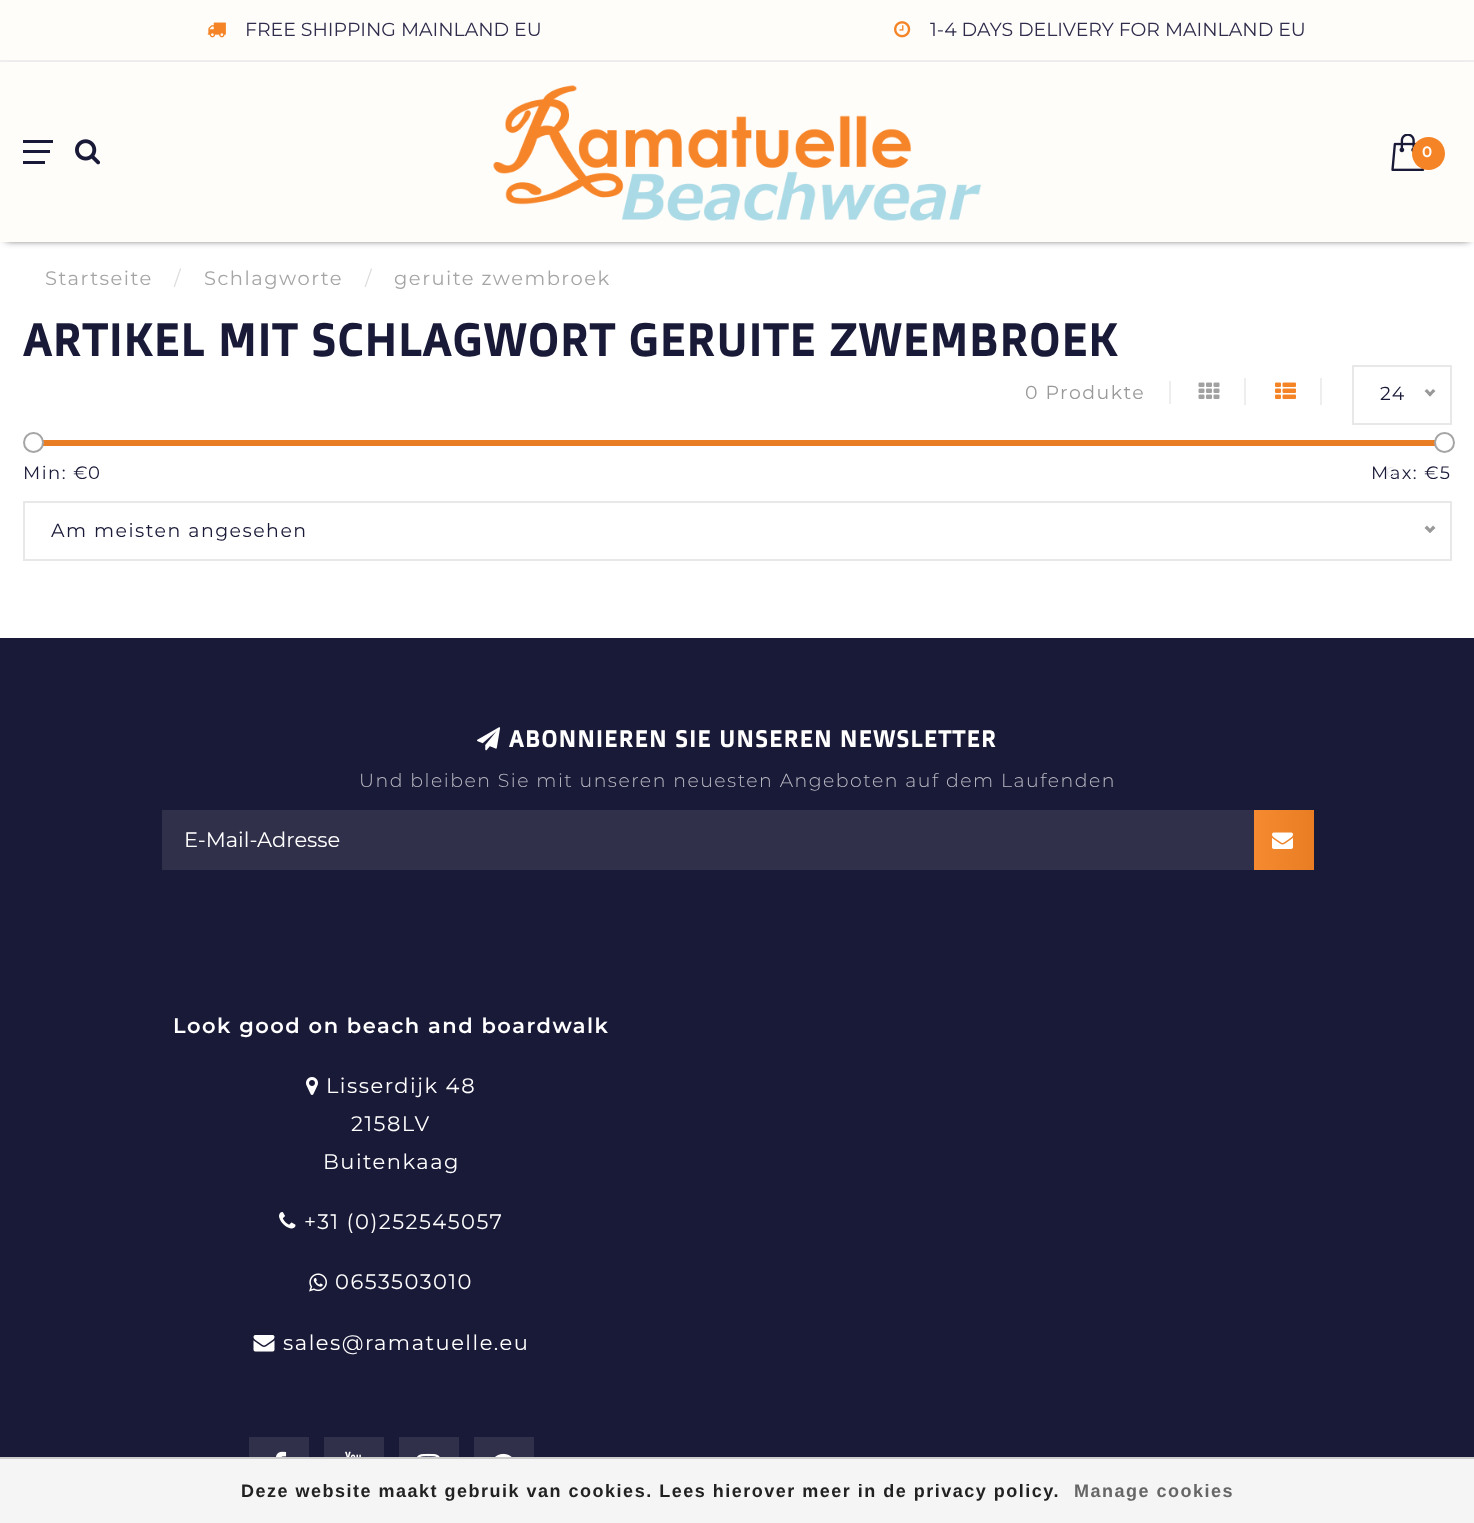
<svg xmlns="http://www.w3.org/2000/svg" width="1474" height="1523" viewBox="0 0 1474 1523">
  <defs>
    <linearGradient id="g1" gradientUnits="userSpaceOnUse" x1="1254" y1="840" x2="1314" y2="840"><stop offset="0" stop-color="#f58a30"/><stop offset="1" stop-color="#e87d24"/></linearGradient>
  </defs>
  <rect width="100%" height="100%" fill="#fff"/>
  <path d="M0 0h1474v60H0z" fill="#fffdfa"/>
  <path d="M0 60h1474v2H0z" fill="#eee"/>
  <image x="207" y="22" width="19" height="16" href="img/1.png"/>
  <image x="894" y="21" width="17" height="17" href="img/2.png"/>
  <path d="M6 71h1463v168H6z" fill="#000" filter="blur(4px)"/>
  <path d="M0 62h1474v180H0z" fill="#fffdfa"/>
  <path d="M23 140h30v3H23z" fill="#191938"/>
  <path d="M23 150h27v3H23z" fill="#191938"/>
  <path d="M23 161h22v3H23z" fill="#191938"/>
  <image x="75" y="139" width="26" height="26" href="img/3.png"/>
  <image x="493" y="85" width="488" height="136" href="img/4.png"/>
  <image x="1391" y="134" width="34" height="37" href="img/5.png"/>
  <circle cx="1428.5" cy="153.5" r="16.5" fill="#f58426"/>
  <path d="M1169 381h2v23H1169z" fill="#eee"/>
  <path d="M1244 378h2v27H1244z" fill="#eee"/>
  <image x="1198" y="382" width="22" height="17" href="img/6.png"/>
  <path d="M1320 378h2v27H1320z" fill="#eee"/>
  <image x="1275" y="382" width="21" height="17" href="img/7.png"/>
  <path d="M1353 366h98v58H1353z" fill="none" stroke="#e8e8e8" stroke-width="2"/>
  <path d="M1433 389L1435.5 391L1430 396.5L1428 394.5Z" fill="#999"/>
  <path d="M1427 389L1432 394.5L1430 396.5L1424.5 391Z" fill="#999"/>
  <path d="M38 440h1397v6H38z" fill="#e87d24"/>
  <circle cx="33.5" cy="442.5" r="9.5" fill="#fff" stroke="#a5a5a5" stroke-width="2"/>
  <circle cx="1444.5" cy="442.5" r="9.5" fill="#fff" stroke="#a5a5a5" stroke-width="2"/>
  <path d="M24 502h1427v58H24z" fill="none" stroke="#e8e8e8" stroke-width="2"/>
  <path d="M1433 525.5L1435.5 528L1430 533L1428 531Z" fill="#999"/>
  <path d="M1427 525.5L1432 531L1430 533L1424.5 528Z" fill="#999"/>
  <path d="M0 638h1474v819H0z" fill="#191938"/>
  <image x="477" y="727" width="24" height="24" href="img/8.png"/>
  <path d="M162 810h1092v60H162z" fill="#30304b"/>
  <path d="M1254 810h60v60H1254z" fill="url(#g1)"/>
  <image x="1272" y="832" width="21" height="17" href="img/9.png"/>
  <image x="306" y="1077" width="12" height="18" href="img/10.png"/>
  <image x="279" y="1212" width="17" height="17" href="img/11.png"/>
  <image x="309" y="1273" width="18" height="19" href="img/12.png"/>
  <image x="253" y="1335" width="22" height="17" href="img/13.png"/>
  <path d="M249 1437h60v20H249z" fill="#30304b"/>
  <image x="276" y="1451" width="11" height="6" href="img/14.png"/>
  <path d="M324 1437h60v20H324z" fill="#30304b"/>
  <image x="345" y="1451" width="16" height="6" href="img/15.png"/>
  <path d="M399 1437h60v20H399z" fill="#30304b"/>
  <image x="417" y="1453" width="23" height="4" href="img/16.png"/>
  <path d="M474 1437h60v20H474z" fill="#30304b"/>
  <image x="495" y="1453" width="17" height="4" href="img/17.png"/>
  <path d="M0 1459h1474v64H0z" fill="#f5f5f5"/>
  <path d="M0 1457h1474v2H0z" fill="#ccc"/>
  <g font-family="Montserrat" font-size="18.9" fill="#2f2c4c">
    <text x="245" y="36">FREE SHIPPING MAINLAND EU</text>
    <text x="930" y="36">1-4 DAYS DELIVERY FOR MAINLAND EU</text>
  </g>
  <text x="1422" y="157" font-family="Montserrat" font-size="15" font-weight="600" letter-spacing="1.5" fill="#fff">0</text>
  <text x="45" y="285" font-family="Montserrat" font-size="19.5" letter-spacing="1.5" fill="#a5a5a5">Startseite</text>
  <text x="174" y="285" font-family="Montserrat" font-size="19.5" letter-spacing="1.5" fill="#ddd">/</text>
  <text x="204" y="285" font-family="Montserrat" font-size="19.5" letter-spacing="1.5" fill="#a5a5a5">Schlagworte</text>
  <text x="365" y="285" font-family="Montserrat" font-size="19.5" letter-spacing="1.5" fill="#ddd">/</text>
  <text x="394" y="285" font-family="Montserrat" font-size="19.5" letter-spacing="1.5" fill="#a5a5a5">geruite zwembroek</text>
  <text x="23" y="356" font-family="Doppio One" font-size="45" font-weight="bold" letter-spacing="1.5" fill="#191938">ARTIKEL MIT SCHLAGWORT GERUITE ZWEMBROEK</text>
  <text x="1025" y="399" font-family="Montserrat" font-size="18.9" letter-spacing="1.5" fill="#999">0 Produkte</text>
  <text x="1380" y="400" font-family="Montserrat" font-size="18.9" letter-spacing="1.5" fill="#191938">24</text>
  <g font-family="Montserrat" font-size="18" letter-spacing="1.5" fill="#191938">
    <text x="23" y="479">Min: €</text>
    <text x="88" y="479">0</text>
    <text x="1371" y="479">Max: €5</text>
  </g>
  <text x="1386" y="477" font-family="Montserrat" font-size="14" letter-spacing="1" fill="#e8e8eb">6</text>
  <text x="51" y="537" font-family="Montserrat" font-size="18.9" letter-spacing="1.5" fill="#191938">Am meisten angesehen</text>
  <text x="509" y="747" font-family="Doppio One" font-size="23.1" font-weight="bold" letter-spacing="1.5" fill="#fff">ABONNIEREN SIE UNSEREN NEWSLETTER</text>
  <text x="359" y="787" font-family="Montserrat" font-size="18.9" font-weight="300" letter-spacing="1.5" fill="#babac3">Und bleiben Sie mit unseren neuesten Angeboten auf dem Laufenden</text>
  <text x="184" y="847" font-family="Montserrat" font-size="21" fill="#fff">E-Mail-Adresse</text>
  <text x="173" y="1033" font-family="Montserrat" font-size="21" font-weight="600" letter-spacing="1.5" fill="#fff">Look good on beach and boardwalk</text>
  <g font-family="Montserrat" font-size="21" letter-spacing="1.5" fill="#fff">
    <text x="326" y="1093">Lisserdijk 48</text>
    <text x="351" y="1131">2158LV</text>
    <text x="323" y="1169">Buitenkaag</text>
    <text x="304" y="1229">+31 (0)252545057</text>
    <text x="335" y="1289">0653503010</text>
    <text x="283" y="1350">sales@ramatuelle.eu</text>
  </g>
  <text x="241" y="1497" font-family="Liberation Sans" font-size="18" font-weight="bold" letter-spacing="1.5" fill="#222">Deze website maakt gebruik van cookies. Lees hierover meer in de privacy policy.</text>
  <text x="1074" y="1497" font-family="Liberation Sans" font-size="18" font-weight="bold" letter-spacing="1.5" fill="#666">Manage cookies</text>
</svg>
